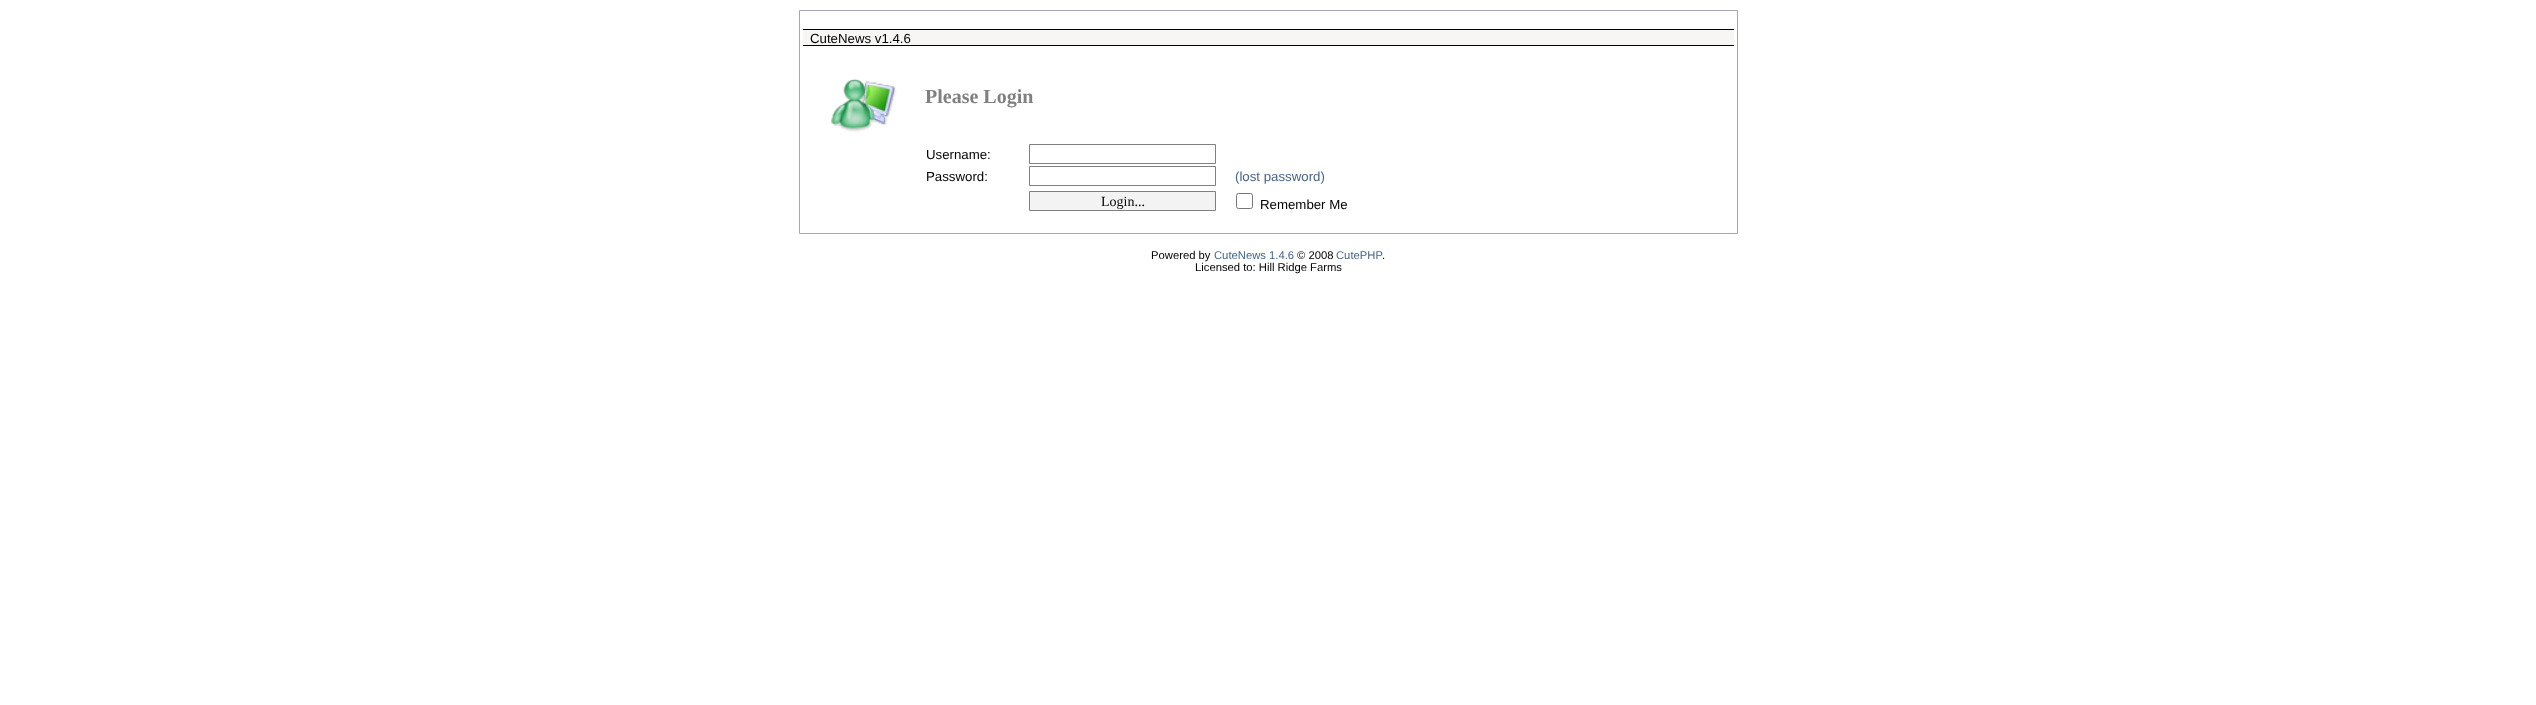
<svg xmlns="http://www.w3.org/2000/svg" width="2536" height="705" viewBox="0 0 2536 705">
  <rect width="100%" height="100%" fill="#fff"/>
  <path d="M799.5 10.5h938v223H799.5z" fill="none" stroke="#a7a6b4"/>
  <path d="M803 29h931v1H803z" fill="#000"/>
  <path d="M803 30h931v15H803z" fill="#f7f6f4"/>
  <path d="M803 45h931v1H803z" fill="#000"/>
  <image x="831" y="78" width="66" height="54" href="img/1.png"/>
  <path d="M1029.5 144.5h186v19H1029.5z" fill="none" stroke="#808080"/>
  <path d="M1029.5 166.5h186v19H1029.5z" fill="none" stroke="#808080"/>
  <path d="M1029.5 191.5h186v19H1029.5z" fill="#f3f3f3" stroke="#808080"/>
  <rect x="1236.5" y="193.5" width="16" height="15" rx="2" fill="none" stroke="#767676"/>
  <text x="810" y="43" font-family="Liberation Sans" font-size="13.25" fill="#000">CuteNews v1.4.6</text>
  <text x="925" y="103" font-family="Liberation Serif" font-size="20" font-weight="bold" fill="#808080">Please Login</text>
  <g font-family="Liberation Sans" font-size="13.25" fill="#000">
    <text x="926" y="159">Username:</text>
    <text x="926" y="181">Password:</text>
  </g>
  <text x="1235" y="181" font-family="Liberation Sans" font-size="13.25" fill="#446488">(lost password)</text>
  <text x="1101" y="206" font-family="Liberation Serif" font-size="14" fill="#000">Login...</text>
  <text x="1260" y="209" font-family="Liberation Sans" font-size="13.25" fill="#000">Remember Me</text>
  <text x="1151" y="259" font-family="Liberation Sans" font-size="11.25" fill="#000">Powered by</text>
  <text x="1214" y="259" font-family="Liberation Sans" font-size="11.25" fill="#446488">CuteNews 1.4.6</text>
  <text x="1297" y="259" font-family="Liberation Sans" font-size="11.25" fill="#000">© 2008</text>
  <text x="1336" y="259" font-family="Liberation Sans" font-size="11.25" fill="#446488">CutePHP</text>
  <g font-family="Liberation Sans" font-size="11.25" fill="#000">
    <text x="1382" y="259">.</text>
    <text x="1195" y="271">Licensed to: Hill Ridge Farms</text>
  </g>
</svg>
